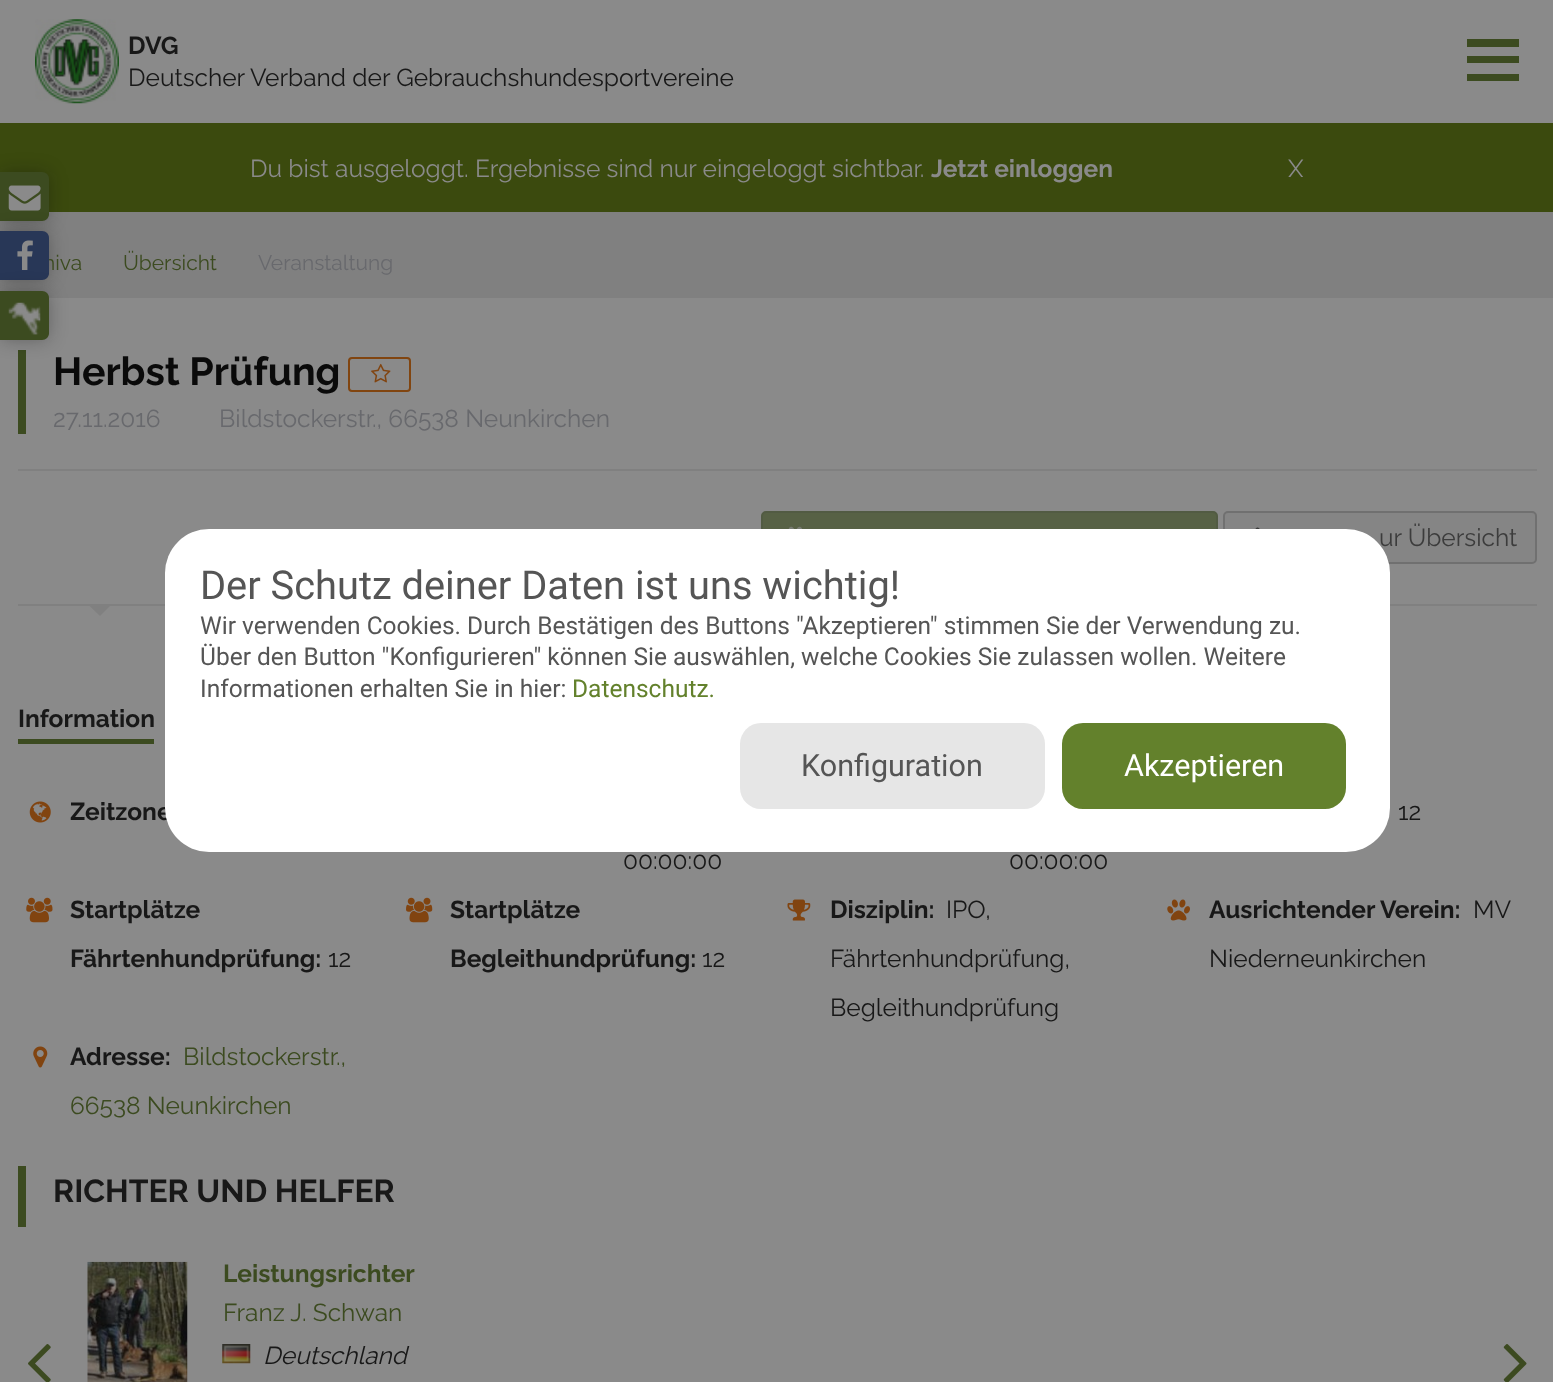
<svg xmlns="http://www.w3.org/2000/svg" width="1553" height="1382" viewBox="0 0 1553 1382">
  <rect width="100%" height="100%" fill="#3b4a0e"/>
  <path d="M0 0h1553v123H0z" fill="#8a8a8a"/>
  <image x="35" y="19" width="84" height="85" href="img/1.png"/>
  <path d="M1467 39h52v8H1467z" fill="#3c4b20"/>
  <path d="M1467 56h52v7H1467z" fill="#3c4b20"/>
  <path d="M1467 74h52v7H1467z" fill="#3c4b20"/>
  <path d="M0 212h1553v86H0z" fill="#808080"/>
  <rect y="172" width="49" height="49" rx="7" fill="#0a0a0a4d" filter="blur(9px)"/>
  <path d="M0 172H42C46 172 49 175 49 179V214C49 218 46 221 42 221H0Z" fill="#3c4b20"/>
  <path d="M0 298h1553v1084H0z" fill="#8a8a8a"/>
  <rect y="231" width="49" height="49" rx="7" fill="#0a0a0a4d" filter="blur(9px)"/>
  <image x="8" y="185" width="33" height="26" href="img/2.png"/>
  <path d="M18 350h8v84H18z" fill="#3c4b20"/>
  <rect x="349" y="358" width="61" height="33" rx="3" fill="none" stroke="#814510" stroke-width="2"/>
  <image x="371" y="363" width="20" height="20" href="img/5.png"/>
  <path d="M18 469h1519v2H18z" fill="#808080"/>
  <rect x="762" y="512" width="455" height="51" rx="4" fill="#576145" stroke="#525b43" stroke-width="2"/>
  <image x="788" y="526" width="14" height="3" href="img/6.png"/>
  <rect x="1224" y="512" width="312" height="51" rx="4" fill="#858585" stroke="#707070" stroke-width="2"/>
  <image x="1255" y="527" width="5" height="2" href="img/7.png"/>
  <path d="M18 604h1519v2H18z" fill="#808080"/>
  <path d="M87.5 604H112L100 616Z" fill="#808080"/>
  <path d="M18 739h136v5H18z" fill="#3c4b20"/>
  <image x="29" y="801" width="22" height="22" href="img/8.png"/>
  <image x="26" y="897" width="27" height="26" href="img/9.png"/>
  <image x="406" y="897" width="27" height="26" href="img/10.png"/>
  <image x="787" y="899" width="24" height="22" href="img/11.png"/>
  <image x="1167" y="899" width="23" height="22" href="img/12.png"/>
  <image x="33" y="1046" width="15" height="22" href="img/13.png"/>
  <path d="M18 1166h8v61H18z" fill="#3c4b20"/>
  <image x="28" y="1344" width="23" height="38" href="img/14.png"/>
  <image x="87" y="1261" width="101" height="121" href="img/15.png"/>
  <image x="222" y="1344" width="29" height="20" href="img/16.png"/>
  <image x="1503" y="1344" width="24" height="38" href="img/17.png"/>
  <text x="128" y="54" font-family="Raleway" font-size="24.5" font-weight="bold" fill="#181818">DVG</text>
  <text x="128" y="86" font-family="Raleway" font-size="24.5" fill="#181818">Deutscher Verband der Gebrauchshundesportvereine</text>
  <text x="250" y="177" font-family="Raleway" font-size="24.5" fill="#8a8a8a">Du bist ausgeloggt. Ergebnisse sind nur eingeloggt sichtbar.</text>
  <text x="931" y="177" font-family="Raleway" font-size="24.5" font-weight="bold" fill="#8a8a8a">Jetzt einloggen</text>
  <text x="1288" y="177" font-family="Raleway" font-size="24.5" fill="#8a8a8a">X</text>
  <text x="43" y="270" font-family="Raleway" font-size="21" fill="#3c4b20">niva</text>
  <path d="M0 231H42C46 231 49 234 49 238V273C49 277 46 280 42 280H0Z" fill="#283757"/>
  <rect y="291" width="49" height="49" rx="7" fill="#0a0a0a4d" filter="blur(9px)"/>
  <path d="M0 291H42C46 291 49 294 49 298V333C49 337 46 340 42 340H0Z" fill="#3c4b20"/>
  <image x="8" y="302" width="33" height="33" href="img/4.png"/>
  <image x="17" y="240" width="16" height="30" href="img/3.png"/>
  <text x="123" y="270" font-family="Raleway" font-size="21" fill="#3c4b20">Übersicht</text>
  <text x="258" y="270" font-family="Raleway" font-size="21" fill="#68696d">Veranstaltung</text>
  <text x="53" y="385" font-family="Raleway" font-size="39.25" font-weight="bold" fill="#0a0a0a">Herbst Prüfung</text>
  <g font-family="Raleway" font-size="24.5" fill="#68696d">
    <text x="53" y="427">27.11.2016</text>
    <text x="219" y="427">Bildstockerstr., 66538 Neunkirchen</text>
  </g>
  <text x="1379" y="546" font-family="Raleway" font-size="24.5" fill="#3c3c3c">ur Übersicht</text>
  <g font-family="Raleway" font-size="24.5" font-weight="bold" fill="#181818">
    <text x="18" y="727">Information</text>
    <text x="70" y="820">Zeitzone</text>
  </g>
  <g font-family="Raleway" font-size="24.5" fill="#181818">
    <text x="1398" y="820">12</text>
    <text x="623" y="869">00:00:00</text>
    <text x="1009" y="869">00:00:00</text>
  </g>
  <g font-family="Raleway" font-size="24.5" font-weight="bold" fill="#181818">
    <text x="70" y="918">Startplätze</text>
    <text x="70" y="967">Fährtenhundprüfung:</text>
  </g>
  <text x="328" y="967" font-family="Raleway" font-size="24.5" fill="#181818">12</text>
  <g font-family="Raleway" font-size="24.5" font-weight="bold" fill="#181818">
    <text x="450" y="918">Startplätze</text>
    <text x="450" y="967">Begleithundprüfung:</text>
  </g>
  <text x="702" y="967" font-family="Raleway" font-size="24.5" fill="#181818">12</text>
  <text x="830" y="918" font-family="Raleway" font-size="24.5" font-weight="bold" fill="#181818">Disziplin:</text>
  <g font-family="Raleway" font-size="24.5" fill="#181818">
    <text x="946" y="918">IPO,</text>
    <text x="830" y="967">Fährtenhundprüfung,</text>
    <text x="830" y="1016">Begleithundprüfung</text>
  </g>
  <text x="1209" y="918" font-family="Raleway" font-size="24.5" font-weight="bold" fill="#181818">Ausrichtender Verein:</text>
  <g font-family="Raleway" font-size="24.5" fill="#181818">
    <text x="1473" y="918">MV</text>
    <text x="1209" y="967">Niederneunkirchen</text>
  </g>
  <text x="70" y="1065" font-family="Raleway" font-size="24.5" font-weight="bold" fill="#181818">Adresse:</text>
  <g font-family="Raleway" font-size="24.5" fill="#3c4b20">
    <text x="183" y="1065">Bildstockerstr.,</text>
    <text x="70" y="1114">66538 Neunkirchen</text>
  </g>
  <text x="53" y="1202" font-family="Raleway" font-size="31.8" font-weight="bold" fill="#181818">RICHTER UND HELFER</text>
  <text x="223" y="1282" font-family="Raleway" font-size="24.5" font-weight="bold" fill="#3c4b20">Leistungsrichter</text>
  <text x="223" y="1321" font-family="Raleway" font-size="24.5" fill="#3c4b20">Franz J. Schwan</text>
  <text x="263" y="1364" font-family="Raleway" font-size="24.5" font-style="italic" fill="#181818">Deutschland</text>
  <rect x="165" y="529" width="1225" height="323" rx="44" fill="#fff"/>
  <text x="200" y="599" font-family="Roboto" font-size="39.8" fill="#555">Der Schutz deiner Daten ist uns wichtig!</text>
  <g font-family="Roboto" font-size="24.5" fill="#555">
    <text x="200" y="634">Wir verwenden Cookies. Durch Bestätigen des Buttons "Akzeptieren" stimmen Sie der Verwendung zu.</text>
    <text x="200" y="665">Über den Button "Konfigurieren" können Sie auswählen, welche Cookies Sie zulassen wollen. Weitere</text>
    <text x="200" y="697">Informationen erhalten Sie in hier:</text>
  </g>
  <text x="572" y="697" font-family="Roboto" font-size="24.5" fill="#63812c">Datenschutz.</text>
  <rect x="740" y="723" width="305" height="86" rx="21" fill="#e6e6e6"/>
  <text x="801" y="776" font-family="Roboto" font-size="30.5" fill="#555">Konfiguration</text>
  <rect x="1062" y="723" width="284" height="86" rx="21" fill="#63812c"/>
  <text x="1124" y="776" font-family="Roboto" font-size="30.5" fill="#fff">Akzeptieren</text>
</svg>
